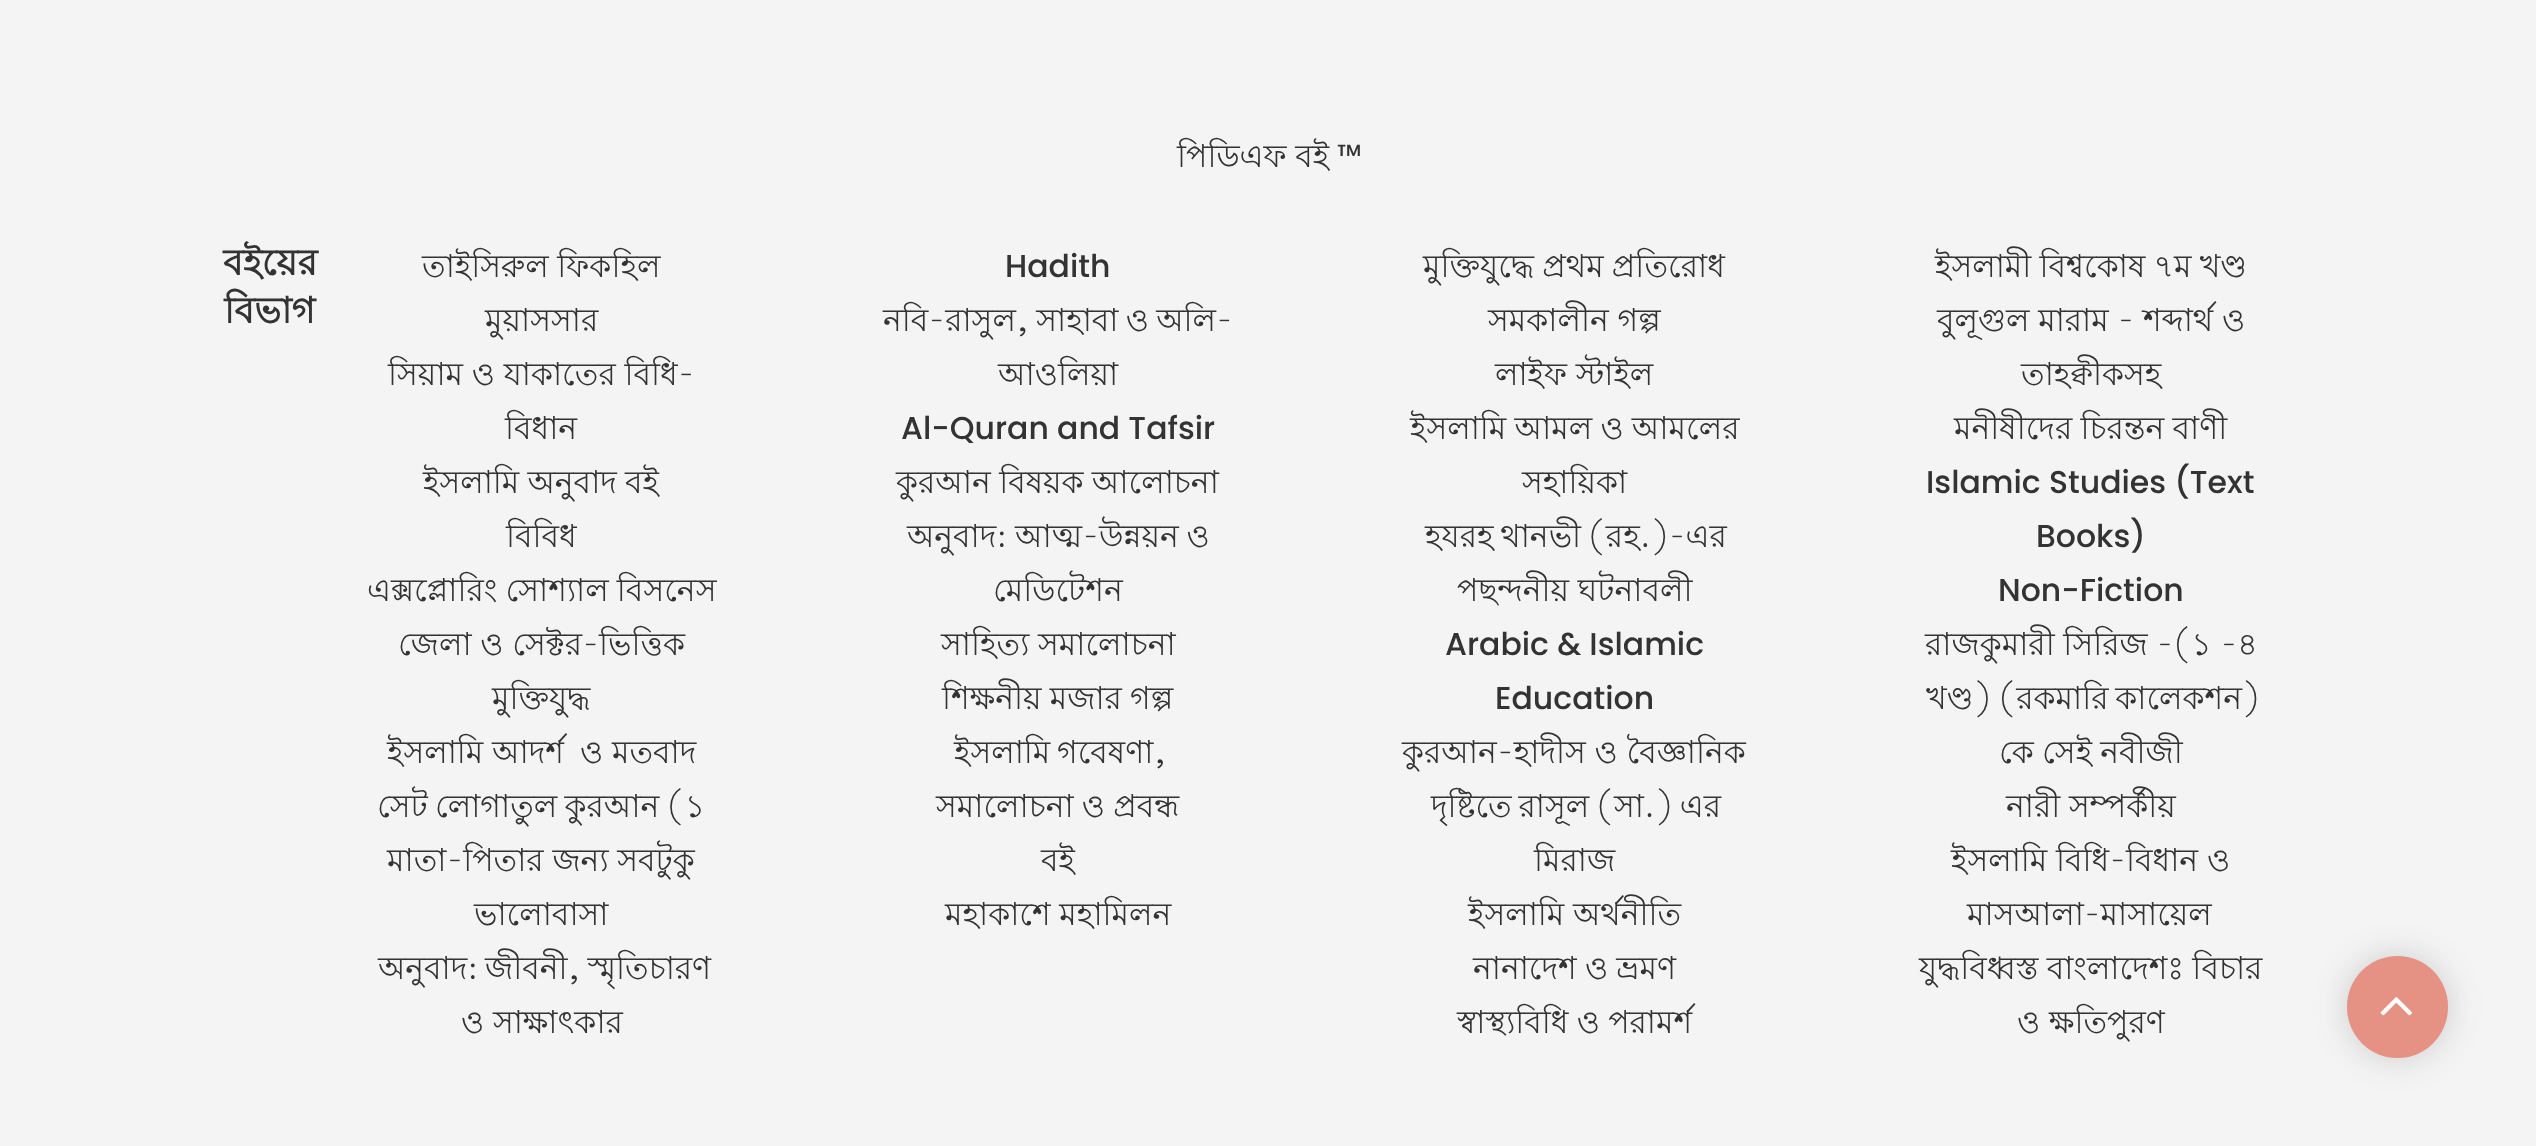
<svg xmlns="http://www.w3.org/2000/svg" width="2536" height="1146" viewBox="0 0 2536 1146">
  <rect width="100%" height="100%" fill="#f4f4f4"/>
  <rect x="2347" y="956" width="101" height="102" rx="50.5" fill="#32323233" filter="blur(17px)"/>
  <rect x="2347" y="956" width="101" height="102" rx="50.5" fill="#e59285"/>
  <image x="2380" y="997" width="32" height="19" href="img/1.png"/>
  <text x="1177" y="167" font-family="Lohit Bengali" font-size="31.5" fill="#333">পিডিএফ বই</text>
  <text x="1337" y="167" font-family="Poppins" font-size="31.5" fill="#333">™</text>
  <g font-family="Lohit Bengali" font-size="36" font-weight="bold" fill="#333">
    <text x="223" y="275">বইয়ের</text>
    <text x="224" y="323">বিভাগ</text>
  </g>
  <g font-family="Lohit Bengali" font-size="31.5" fill="#333">
    <text x="422" y="277">তাইসিরুল ফিকহিল</text>
    <text x="485" y="331">মুয়াসসার</text>
    <text x="388" y="385">সিয়াম ও যাকাতের বিধি-</text>
    <text x="505" y="439">বিধান</text>
    <text x="423" y="493" word-spacing="-0.5">ইসলামি অনুবাদ বই</text>
    <text x="506" y="547">বিবিধ</text>
    <text x="367" y="601" word-spacing="-0.5">এক্সপ্লোরিং সোশ্যাল বিসনেস</text>
    <text x="398" y="655">জেলা ও সেক্টর-ভিত্তিক</text>
    <text x="492" y="709">মুক্তিযুদ্ধ</text>
    <text x="387" y="763">ইসলামি আদর্শ</text>
    <text x="580" y="763">ও মতবাদ</text>
    <text x="377" y="817" word-spacing="-1.5">সেট লোগাতুল কুরআন (১</text>
    <text x="387" y="871">মাতা-পিতার জন্য সবটুকু</text>
    <text x="474" y="925">ভালোবাসা</text>
    <text x="378" y="979" word-spacing="-2">অনুবাদ: জীবনী, স্মৃতিচারণ</text>
    <text x="461" y="1033">ও সাক্ষাৎকার</text>
  </g>
  <text x="1005" y="277" font-family="Poppins" font-size="31.5" font-weight="500" fill="#333">Hadith</text>
  <g font-family="Lohit Bengali" font-size="31.5" fill="#333">
    <text x="883" y="331" word-spacing="-1.5">নবি-রাসুল, সাহাবা ও অলি-</text>
    <text x="998" y="385">আওলিয়া</text>
  </g>
  <text x="901" y="439" font-family="Poppins" font-size="31.5" font-weight="500" fill="#333">Al-Quran and Tafsir</text>
  <g font-family="Lohit Bengali" font-size="31.5" fill="#333">
    <text x="896" y="493" word-spacing="-0.5">কুরআন বিষয়ক আলোচনা</text>
    <text x="907" y="547" word-spacing="-1">অনুবাদ: আত্ম-উন্নয়ন ও</text>
    <text x="993" y="601">মেডিটেশন</text>
    <text x="941" y="655">সাহিত্য সমালোচনা</text>
    <text x="942" y="709" word-spacing="-0.5">শিক্ষনীয় মজার গল্প</text>
    <text x="954" y="763" word-spacing="-2">ইসলামি গবেষণা,</text>
    <text x="936" y="817" word-spacing="-0.5">সমালোচনা ও প্রবন্ধ</text>
    <text x="1041" y="871">বই</text>
    <text x="945" y="925">মহাকাশে মহামিলন</text>
    <text x="1423" y="277" word-spacing="-0.5">মুক্তিযুদ্ধে প্রথম প্রতিরোধ</text>
    <text x="1488" y="331">সমকালীন গল্প</text>
    <text x="1495" y="385">লাইফ স্টাইল</text>
    <text x="1410" y="439" word-spacing="-0.5">ইসলামি আমল ও আমলের</text>
    <text x="1522" y="493">সহায়িকা</text>
    <text x="1425" y="547" word-spacing="-2">হযরহ থানভী (রহ.)-এর</text>
    <text x="1457" y="601">পছন্দনীয় ঘটনাবলী</text>
  </g>
  <g font-family="Poppins" font-size="31.5" font-weight="500" fill="#333">
    <text x="1445" y="655">Arabic &amp; Islamic</text>
    <text x="1495" y="709">Education</text>
  </g>
  <g font-family="Lohit Bengali" font-size="31.5" fill="#333">
    <text x="1402" y="763">কুরআন-হাদীস ও বৈজ্ঞানিক</text>
    <text x="1431" y="817" word-spacing="-2">দৃষ্টিতে রাসূল (সা.) এর</text>
    <text x="1534" y="871">মিরাজ</text>
    <text x="1468" y="925">ইসলামি অর্থনীতি</text>
    <text x="1473" y="979" word-spacing="-0.5">নানাদেশ ও ভ্রমণ</text>
    <text x="1457" y="1033" word-spacing="-0.5">স্বাস্থ্যবিধি ও পরামর্শ</text>
    <text x="1935" y="277" word-spacing="-0.5">ইসলামী বিশ্বকোষ ৭ম খণ্ড</text>
    <text x="1937" y="331">বুলূগুল মারাম - শব্দার্থ ও</text>
    <text x="2021" y="385">তাহক্বীকসহ</text>
    <text x="1954" y="439" word-spacing="-0.5">মনীষীদের চিরন্তন বাণী</text>
  </g>
  <g font-family="Poppins" font-size="31.5" font-weight="500" fill="#333">
    <text x="1926" y="493">Islamic Studies (Text</text>
    <text x="2036" y="547">Books)</text>
    <text x="1998" y="601">Non-Fiction</text>
  </g>
  <g font-family="Lohit Bengali" font-size="31.5" fill="#333">
    <text x="1925" y="655">রাজকুমারী সিরিজ -(১ -৪</text>
    <text x="1926" y="709" word-spacing="-2">খণ্ড) (রকমারি কালেকশন)</text>
    <text x="1999" y="763" word-spacing="-0.5">কে সেই নবীজী</text>
    <text x="2006" y="817">নারী সম্পর্কীয়</text>
    <text x="1951" y="871">ইসলামি বিধি-বিধান ও</text>
    <text x="1967" y="925">মাসআলা-মাসায়েল</text>
    <text x="1919" y="979" word-spacing="-0.5">যুদ্ধবিধ্বস্ত বাংলাদেশঃ বিচার</text>
    <text x="2017" y="1033">ও ক্ষতিপুরণ</text>
  </g>
</svg>
